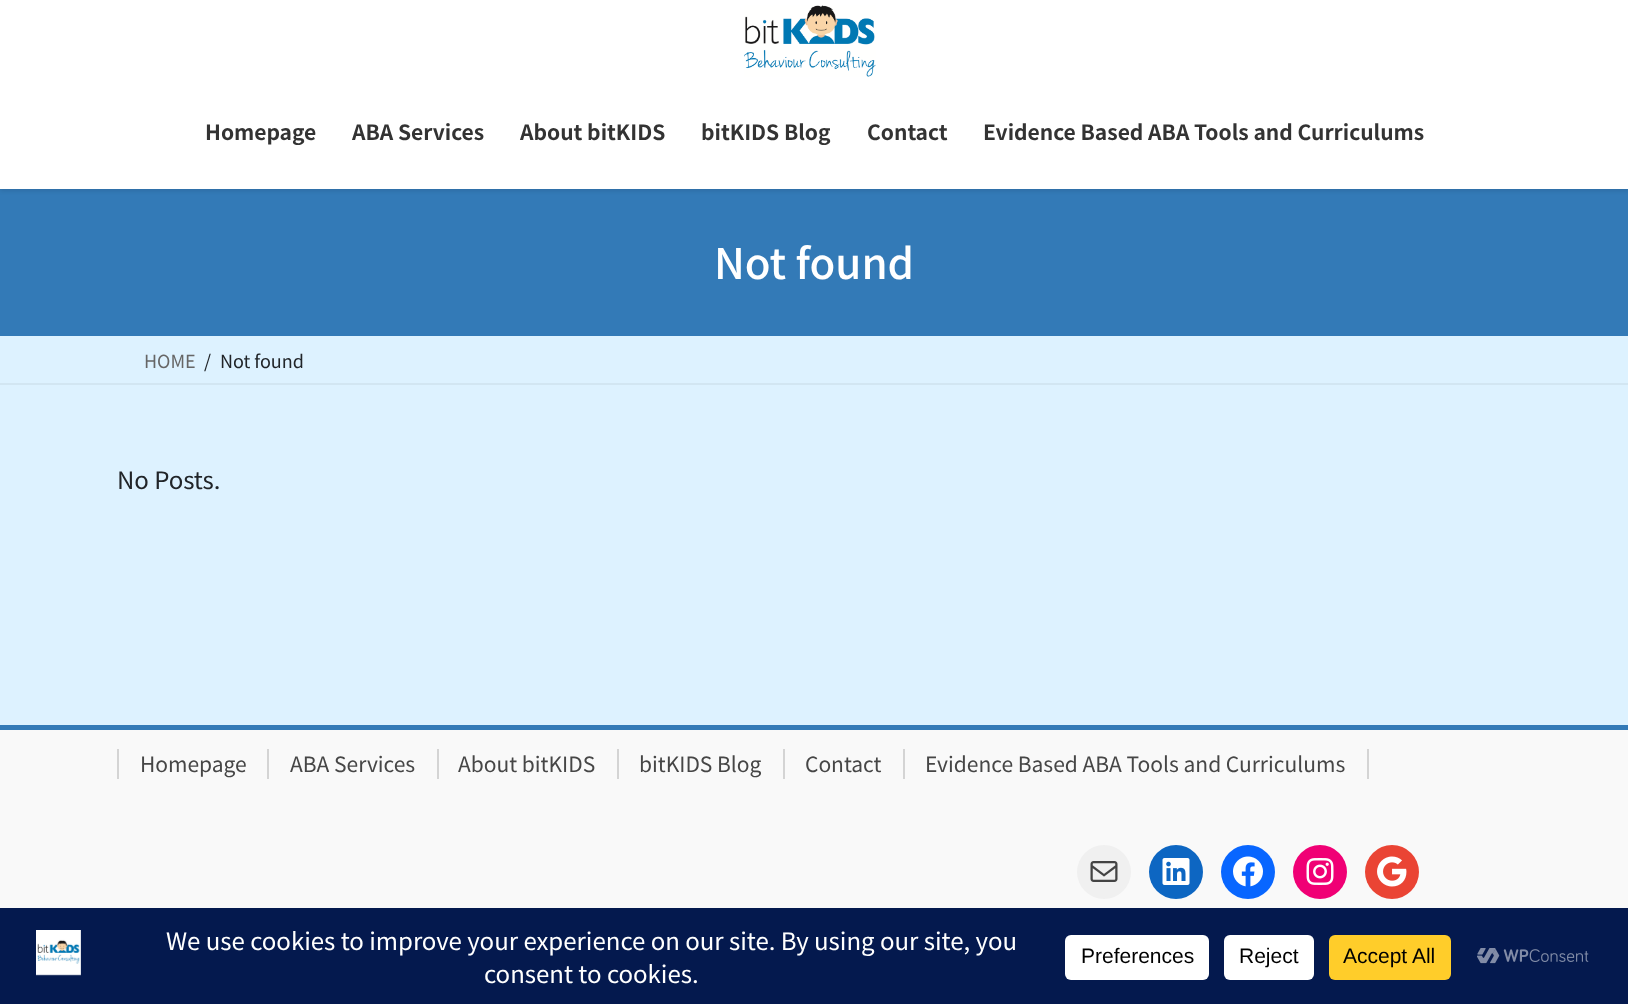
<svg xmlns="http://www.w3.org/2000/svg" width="1628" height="1004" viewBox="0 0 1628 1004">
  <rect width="100%" height="100%" fill="#ddf2ff"/>
  <path d="M0 189h1628v147H0z" fill="#337ab7"/>
  <path d="M0 -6h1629v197H0z" fill="#0000001a" filter="blur(2px)"/>
  <path d="M0 0h1628v189H0z" fill="#fff"/>
  <image x="744" y="5" width="132" height="72" href="img/1.png"/>
  <path d="M0 383h1628v2H0z" fill="#d2e6f2"/>
  <path d="M0 730h1628v178H0z" fill="#f9f9f9"/>
  <path d="M0 725h1628v5H0z" fill="#337ab7"/>
  <path d="M117 749h2v30H117z" fill="#d4d4d4"/>
  <path d="M267 749h2v30H267z" fill="#d4d4d4"/>
  <path d="M437 749h2v30H437z" fill="#d4d4d4"/>
  <path d="M617 749h2v30H617z" fill="#d4d4d4"/>
  <path d="M783 749h2v30H783z" fill="#d4d4d4"/>
  <path d="M1367 749h2v30H1367z" fill="#d4d4d4"/>
  <path d="M903 749h2v30H903z" fill="#d4d4d4"/>
  <circle cx="1104" cy="872" r="27" fill="#f0f0f0"/>
  <image x="1090" y="861" width="28" height="21" href="img/2.png"/>
  <circle cx="1176" cy="872" r="27" fill="#0d66c2"/>
  <image x="1162" y="858" width="28" height="27" href="img/3.png"/>
  <circle cx="1248" cy="872" r="27" fill="#0866ff"/>
  <image x="1233" y="856" width="30" height="31" href="img/4.png"/>
  <circle cx="1320" cy="872" r="27" fill="#f00075"/>
  <image x="1306" y="858" width="28" height="27" href="img/5.png"/>
  <circle cx="1392" cy="872" r="27" fill="#ea4434"/>
  <image x="1377" y="856" width="30" height="31" href="img/6.png"/>
  <path d="M0 908h1628v96H0z" fill="#04194e"/>
  <image x="36" y="930" width="45" height="46" href="img/7.png"/>
  <rect x="1065" y="935" width="144" height="45" rx="6" fill="#fff"/>
  <rect x="1224" y="935" width="90" height="45" rx="6" fill="#fff"/>
  <rect x="1329" y="935" width="122" height="45" rx="6" fill="#ffcd2a"/>
  <image x="1477" y="948" width="112" height="16" href="img/8.png"/>
  <g font-family="Noto Sans JP" font-size="21" font-weight="bold" fill="#333">
    <text x="205" y="140">Homepage</text>
    <text x="352" y="140">ABA Services</text>
    <text x="520" y="140">About bitKIDS</text>
    <text x="701" y="140">bitKIDS Blog</text>
    <text x="867" y="140">Contact</text>
    <text x="983" y="140">Evidence Based ABA Tools and Curriculums</text>
  </g>
  <text x="714" y="279" font-family="Noto Sans JP" font-size="42" font-weight="500" fill="#fff">Not found</text>
  <text x="144" y="368" font-family="Noto Sans JP" font-size="18" fill="#666">HOME</text>
  <g font-family="Noto Sans JP" font-size="18" fill="#212529">
    <text x="204" y="368">/</text>
    <text x="220" y="368">Not found</text>
  </g>
  <text x="117" y="489" font-family="Noto Sans JP" font-size="24" fill="#212529">No Posts.</text>
  <g font-family="Noto Sans JP" font-size="21" fill="#464646">
    <text x="140" y="772">Homepage</text>
    <text x="290" y="772">ABA Services</text>
    <text x="458" y="772">About bitKIDS</text>
    <text x="639" y="772">bitKIDS Blog</text>
    <text x="805" y="772">Contact</text>
    <text x="925" y="772">Evidence Based ABA Tools and Curriculums</text>
  </g>
  <g font-family="Noto Sans JP" font-size="24" fill="#fff">
    <text x="166" y="950">We use cookies to improve your experience on our site. By using our site, you</text>
    <text x="484" y="983">consent to cookies.</text>
  </g>
  <g font-family="Liberation Sans" font-size="21" fill="#000">
    <text x="1081" y="963">Preferences</text>
    <text x="1239" y="963">Reject</text>
    <text x="1343" y="963">Accept All</text>
  </g>
</svg>
